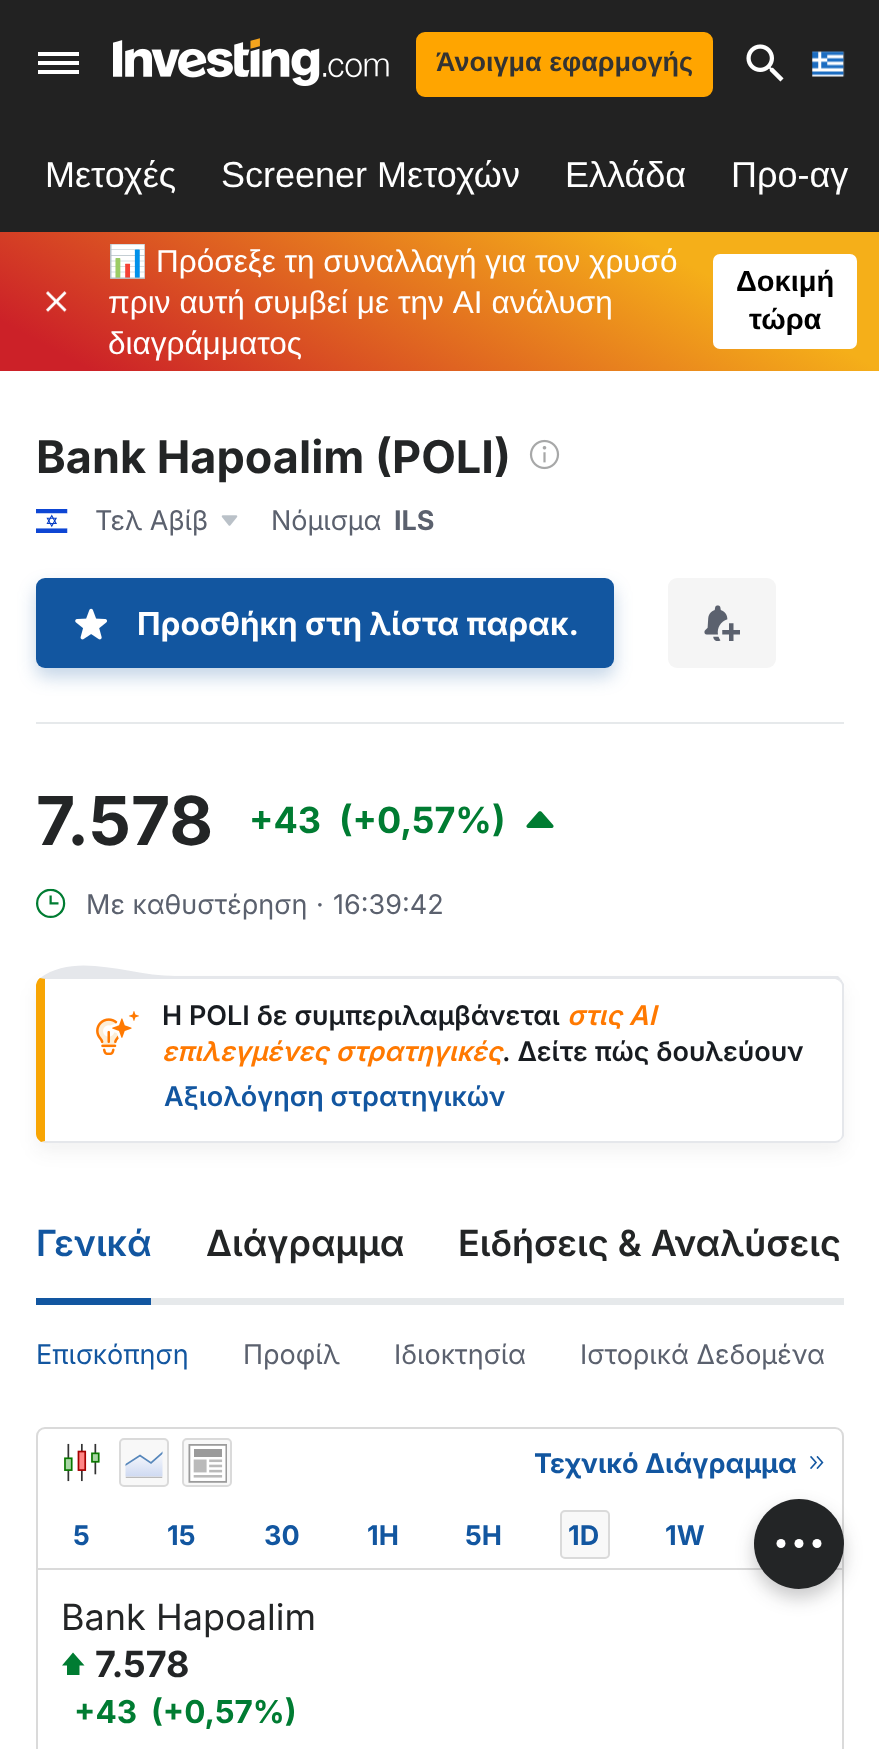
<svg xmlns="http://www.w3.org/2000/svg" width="879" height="1749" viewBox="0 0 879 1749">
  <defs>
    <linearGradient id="g1" gradientUnits="userSpaceOnUse" x1="571" y1="63" x2="309" y2="540"><stop offset="0.22" stop-color="#f5af19"/><stop offset="0.92" stop-color="#cc2128"/></linearGradient>
    <clipPath id="clip1"><path d="M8 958H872V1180H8ZM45 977H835C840 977 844 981 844 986V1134C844 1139 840 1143 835 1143H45C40 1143 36 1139 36 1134V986C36 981 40 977 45 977Z" clip-rule="evenodd"/></clipPath>
    <linearGradient id="g2" gradientUnits="userSpaceOnUse" x1="144" y1="1449" x2="144" y2="1477"><stop offset="0" stop-color="#fff"/><stop offset="1" stop-color="#ced9f1"/></linearGradient>
    <clipPath id="clip2"><path d="M125.5 1451H162.5V1478H125.5Z"/></clipPath>
  </defs>
  <rect width="100%" height="100%" fill="#fff"/>
  <path d="M0 0h879v232H0z" fill="#222"/>
  <path d="M38 74H79V70H38ZM38 65H79V61H38ZM38 52V56H79V52Z" fill="#fff" fill-rule="evenodd"/>
  <image x="113" y="38" width="276" height="48" href="img/1.png"/>
  <rect x="417" y="33" width="295" height="63" rx="8" fill="#ffa500" stroke="#ffa500" stroke-width="2"/>
  <image x="746" y="44" width="38" height="38" href="img/2.png"/>
  <image x="812" y="51" width="33" height="26" href="img/3.png"/>
  <path d="M0 232h879v139H0z" fill="url(#g1)"/>
  <image x="46" y="291" width="21" height="22" href="img/4.png"/>
  <rect x="713" y="254" width="144" height="95" rx="7" fill="#fff"/>
  <image x="529" y="439" width="31" height="31" href="img/5.png"/>
  <image x="36" y="509" width="32" height="24" href="img/6.png"/>
  <image x="221" y="515" width="17" height="11" href="img/7.png"/>
  <rect x="36" y="587" width="578" height="90" rx="9" fill="#1256a040" filter="blur(9px)"/>
  <rect x="36" y="578" width="578" height="90" rx="9" fill="#1256a0"/>
  <image x="75" y="608" width="32" height="32" href="img/8.png"/>
  <rect x="668" y="578" width="108" height="90" rx="9" fill="#f5f5f5"/>
  <image x="704" y="605" width="36" height="36" href="img/9.png"/>
  <path d="M36 722h808v2H36z" fill="#e6e9eb"/>
  <image x="526" y="811" width="28" height="17" href="img/10.png"/>
  <image x="36" y="888" width="30" height="30" href="img/11.png"/>
  <g clip-path="url(#clip1)">
    <rect x="36" y="986" width="808" height="166" rx="9" fill="#2325260f" filter="blur(9px)"/>
  </g>
  <path d="M40 978C77 951 130 976 175 976H838L841 979L839 981C838 980 836 979 835 979H46Z" fill="#e5e7eb"/>
  <path d="M844 1136C843 1138 842 1139 841 1140L840 1139C841 1138 842 1136 842 1134V986C842 984 841 982 839 981L841 979L844 984Z" fill="#e5e7eb"/>
  <path d="M45 1143H835C837 1143 840 1142 841 1140L840 1139C838 1140 837 1141 835 1141H45L41 1142Z" fill="#e5e7eb"/>
  <path d="M45 979H46L40 978C38 979 36 983 36 986V1134C36 1137 38 1140 41 1142L45 1141Z" fill="#f8a503"/>
  <image x="96" y="1011" width="43" height="44" href="img/12.png"/>
  <path d="M151 1298h693v7H151z" fill="#e6e9eb"/>
  <path d="M36 1298h115v7H36z" fill="#1256a0"/>
  <rect x="37" y="1428" width="806" height="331" rx="8" fill="none" stroke="#dadada" stroke-width="2"/>
  <path d="M38 1568h804v2H38z" fill="#dadada"/>
  <image x="64" y="1443" width="36" height="39" href="img/13.png"/>
  <rect x="120" y="1439" width="48" height="47" rx="4" fill="#f8f8f8" stroke="#dadada" stroke-width="2"/>
  <path d="M125.5 1466V1476.5H162.5V1453L151 1464L140 1456.5Z" fill="url(#g2)"/>
  <g clip-path="url(#clip2)">
    <path d="M125.5 1477.5H162.5" fill="none" stroke="#bababa" stroke-width="1.7"/>
    <path d="M124.5 1465.5L140 1455.5L151 1463L163.5 1452" fill="none" stroke="#5787bb" stroke-width="1.7"/>
  </g>
  <rect x="183" y="1439" width="48" height="47" rx="4" fill="#f8f8f8" stroke="#dadada" stroke-width="2"/>
  <image x="188" y="1444" width="39" height="39" href="img/14.png"/>
  <image x="810" y="1456" width="14" height="13" href="img/15.png"/>
  <rect x="561" y="1511" width="48" height="47" rx="4" fill="#f8f8f8" stroke="#dadada" stroke-width="2"/>
  <path d="M79.5 1675V1665.5H84.5L73 1652.5L62 1665.5H67V1675Z" fill="#007c32" fill-rule="evenodd"/>
  <rect x="754" y="1508" width="90" height="90" rx="45" fill="#23252640" filter="blur(9px)"/>
  <circle cx="799" cy="1544" r="45" fill="#232526"/>
  <circle cx="817" cy="1543.5" r="4.5" fill="#fff"/>
  <circle cx="781" cy="1543.5" r="4.5" fill="#fff"/>
  <circle cx="799" cy="1543.5" r="4.5" fill="#fff"/>
  <text x="436" y="71" font-family="Liberation Sans" font-size="27" font-weight="bold" fill="#333">Άνοιγμα εφαρμογής</text>
  <g font-family="Liberation Sans" font-size="36" fill="#fff">
    <text x="45" y="187">Mετοχές</text>
    <text x="221" y="187">Screener Μετοχών</text>
    <text x="565" y="187">Ελλάδα</text>
    <text x="731" y="187">Προ-αγ</text>
  </g>
  <text x="108" y="272" font-family="Noto Color Emoji" font-size="31.5" fill="#fff">📊</text>
  <g font-family="Liberation Sans" font-size="31.5" fill="#fff">
    <text x="156" y="272">Πρόσεξε τη συναλλαγή για τον χρυσό</text>
    <text x="108" y="313" word-spacing="0.25">πριν αυτή συμβεί με την AI ανάλυση</text>
    <text x="108" y="354">διαγράμματος</text>
  </g>
  <g font-family="Liberation Sans" font-size="29" font-weight="bold" fill="#000">
    <text x="736" y="291">Δοκιμή</text>
    <text x="749" y="329">τώρα</text>
  </g>
  <text x="36" y="473" font-family="Inter" font-size="45" font-weight="bold" fill="#232526">Bank Hapoalim (POLI)</text>
  <g font-family="Inter" font-size="27" fill="#5b616e">
    <text x="95" y="530">Τελ Αβίβ</text>
    <text x="271" y="530">Νόμισμα</text>
  </g>
  <text x="394" y="530" font-family="Inter" font-size="27" font-weight="bold" fill="#5b616e">ILS</text>
  <text x="137" y="635" font-family="Inter" font-size="31.5" font-weight="bold" fill="#fff">Προσθήκη στη λίστα παρακ.</text>
  <text x="36" y="845" font-family="Inter" font-size="67.5" font-weight="bold" fill="#232526">7.578</text>
  <g font-family="Inter" font-size="36" font-weight="bold" fill="#007c32">
    <text x="249" y="833">+43</text>
    <text x="339" y="833">(+0,57%)</text>
  </g>
  <g font-family="Inter" font-size="27" fill="#5b616e">
    <text x="86" y="914">Με καθυστέρηση</text>
    <text x="316" y="914">·</text>
    <text x="333" y="914">16:39:42</text>
  </g>
  <text x="162" y="1025" font-family="Inter" font-size="27" font-weight="600" fill="#181c21">Η POLI δε συμπεριλαμβάνεται</text>
  <g font-family="Inter" font-size="27" font-weight="600" font-style="italic" fill="#ff7901">
    <text x="567" y="1025">στις AI</text>
    <text x="162" y="1061">επιλεγμένες στρατηγικές</text>
  </g>
  <text x="502" y="1061" font-family="Inter" font-size="27" font-weight="600" fill="#181c21">. Δείτε πώς δουλεύουν</text>
  <text x="164" y="1106" font-family="Inter" font-size="27" font-weight="600" fill="#1256a0">Αξιολόγηση στρατηγικών</text>
  <text x="36" y="1256" font-family="Inter" font-size="36" font-weight="600" fill="#1256a0">Γενικά</text>
  <g font-family="Inter" font-size="36" font-weight="600" fill="#232526">
    <text x="206" y="1256">Διάγραμμα</text>
    <text x="458" y="1256">Ειδήσεις &amp; Αναλύσεις</text>
  </g>
  <text x="36" y="1364" font-family="Inter" font-size="27" fill="#1256a0">Επισκόπηση</text>
  <g font-family="Inter" font-size="27" fill="#5b616e">
    <text x="243" y="1364">Προφίλ</text>
    <text x="394" y="1364">Ιδιοκτησία</text>
    <text x="580" y="1364">Ιστορικά Δεδομένα</text>
  </g>
  <g font-family="Inter" font-size="27" font-weight="bold" fill="#1256a0">
    <text x="534" y="1473">Τεχνικό Διάγραμμα</text>
    <text x="73" y="1545">5</text>
    <text x="167" y="1545">15</text>
    <text x="264" y="1545">30</text>
    <text x="367" y="1545">1H</text>
    <text x="465" y="1545">5H</text>
    <text x="568" y="1545">1D</text>
    <text x="665" y="1545">1W</text>
  </g>
  <text x="61" y="1630" font-family="Inter" font-size="36" fill="#232526">Bank Hapoalim</text>
  <text x="95" y="1677" font-family="Inter" font-size="36" font-weight="bold" fill="#232526">7.578</text>
  <g font-family="Inter" font-size="31.5" font-weight="bold" fill="#007c32">
    <text x="74" y="1723">+43</text>
    <text x="151" y="1723">(+0,57%)</text>
  </g>
</svg>
